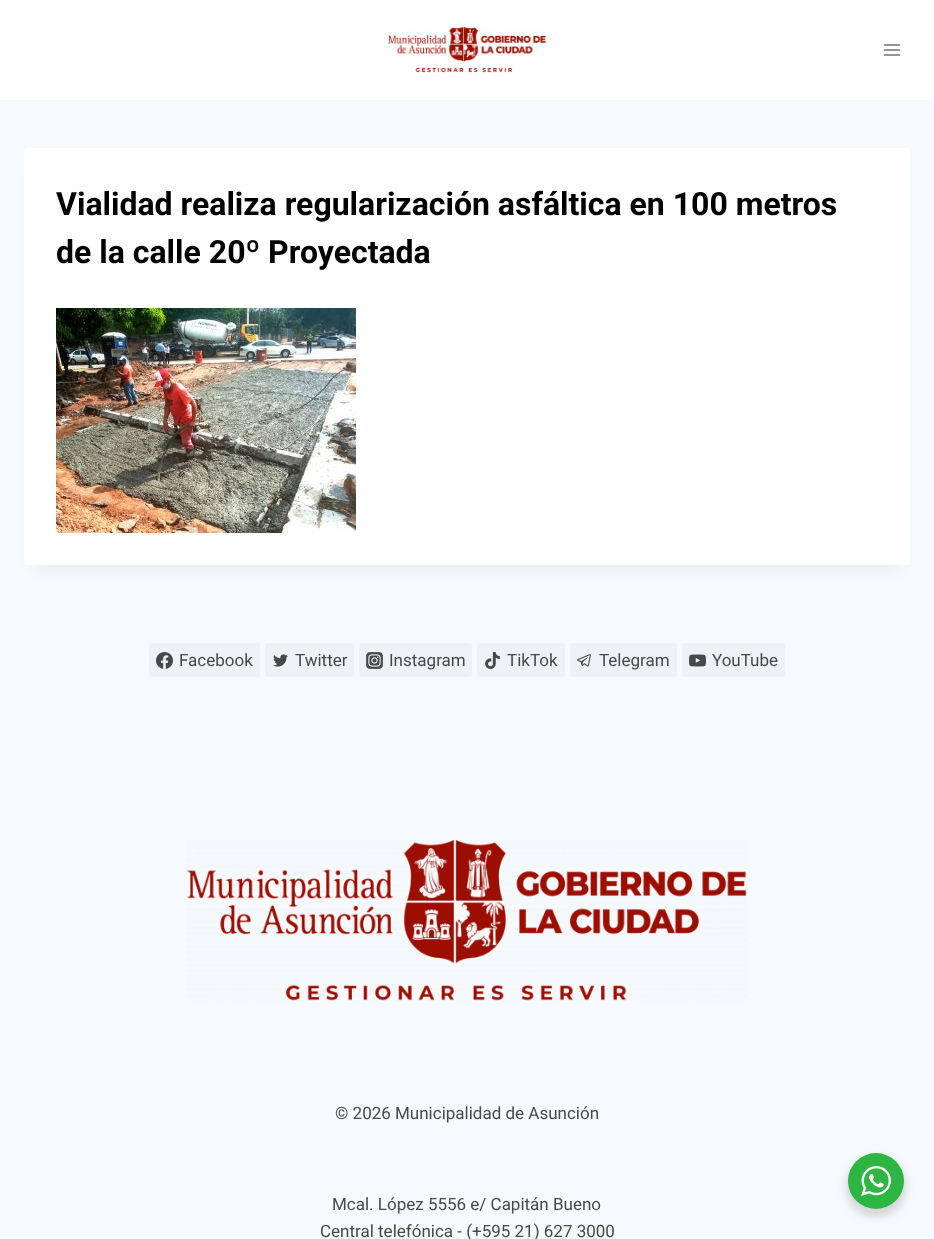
<svg xmlns="http://www.w3.org/2000/svg" width="934" height="1239" viewBox="0 0 934 1239">
  <rect width="100%" height="100%" fill="#f7fafc"/>
  <path d="M0 0h934v100H0z" fill="#fff"/>
  <image x="388" y="26" width="159" height="47" href="img/1.png"/>
  <image x="883" y="44" width="18" height="12" href="img/2.png"/>
  <path d="M34 173h866v397H34z" fill="#0000000d" filter="blur(7.5px)"/>
  <rect x="24" y="148" width="886" height="417" rx="4" fill="#fff"/>
  <image x="56" y="308" width="300" height="225" href="img/3.png"/>
  <rect x="149" y="643" width="111" height="34" rx="3" fill="#edf2f7"/>
  <image x="156" y="652" width="17" height="17" href="img/4.png"/>
  <rect x="265" y="643" width="89" height="34" rx="3" fill="#edf2f7"/>
  <image x="273" y="654" width="15" height="13" href="img/5.png"/>
  <rect x="359" y="643" width="113" height="34" rx="3" fill="#edf2f7"/>
  <image x="366" y="652" width="17" height="17" href="img/6.png"/>
  <rect x="477" y="643" width="88" height="34" rx="3" fill="#edf2f7"/>
  <image x="485" y="652" width="15" height="17" href="img/7.png"/>
  <rect x="570" y="643" width="107" height="34" rx="3" fill="#edf2f7"/>
  <image x="577" y="654" width="14" height="13" href="img/8.png"/>
  <rect x="682" y="643" width="103" height="34" rx="3" fill="#edf2f7"/>
  <image x="689" y="654" width="17" height="13" href="img/9.png"/>
  <image x="186" y="840" width="561" height="161" href="img/10.png"/>
  <rect x="846" y="1157" width="60" height="60" rx="30" fill="#00000024" filter="blur(4px)"/>
  <circle cx="876" cy="1181" r="28" fill="#2db742"/>
  <image x="861" y="1166" width="30" height="30" href="img/11.png"/>
  <g font-family="Roboto" font-size="32" font-weight="bold" fill="#000">
    <text x="56" y="215">Vialidad realiza regularización asfáltica en 100 metros</text>
    <text x="56" y="263">de la calle 20º Proyectada</text>
  </g>
  <g font-family="Roboto" font-size="17" fill="#484848">
    <text x="179" y="666">Facebook</text>
    <text x="295" y="666">Twitter</text>
    <text x="389" y="666">Instagram</text>
    <text x="507" y="666">TikTok</text>
    <text x="599" y="666">Telegram</text>
    <text x="712" y="666">YouTube</text>
    <text x="335" y="1119">© 2026 Municipalidad de Asunción</text>
    <text x="332" y="1210">Mcal. López 5556 e/ Capitán Bueno</text>
    <text x="320" y="1237">Central telefónica - (+595 21) 627 3000</text>
  </g>
</svg>
